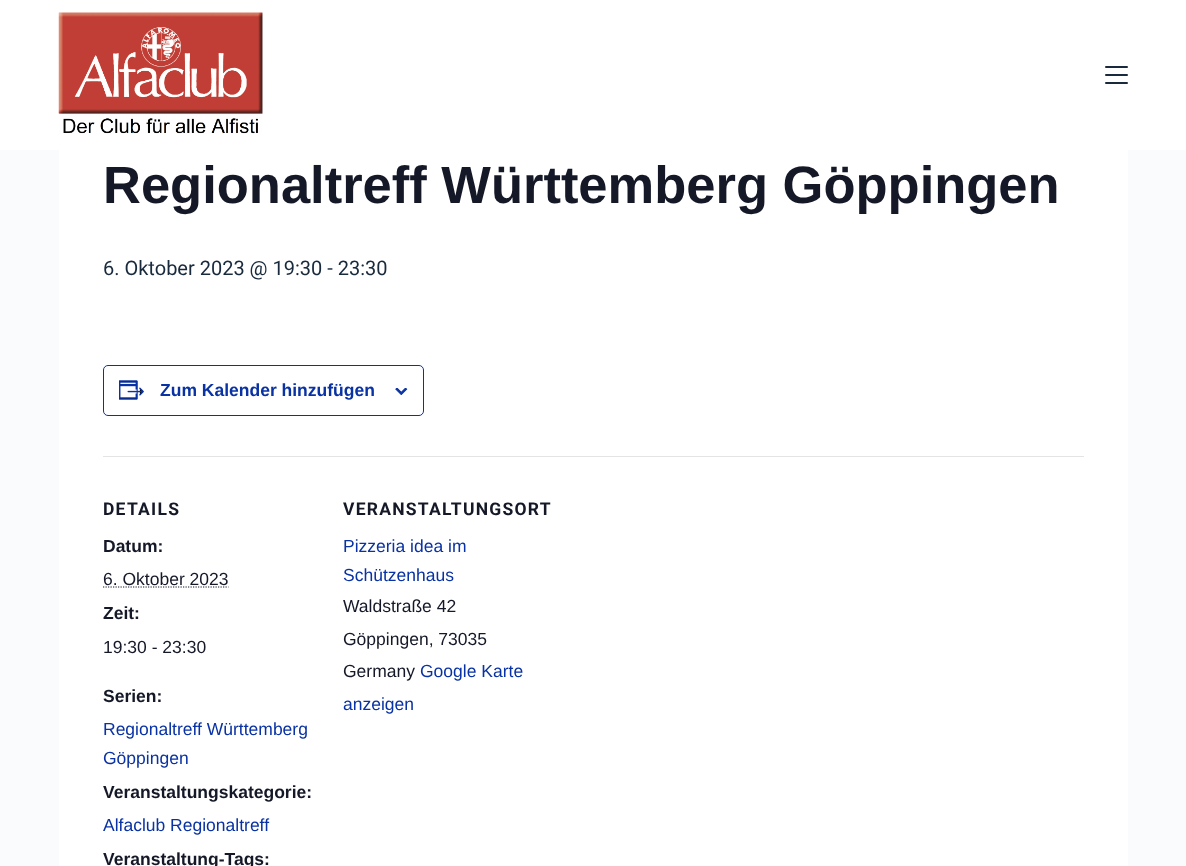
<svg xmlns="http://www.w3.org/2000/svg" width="1186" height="866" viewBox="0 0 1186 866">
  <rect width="100%" height="100%" fill="#fafbfc"/>
  <path d="M0 0h1186v150H0z" fill="#fff"/>
  <image x="58" y="12" width="205" height="122" href="img/1.png"/>
  <rect x="1105" y="66" width="23" height="2" rx="1" fill="#192a3d"/>
  <rect x="1105" y="74" width="23" height="2" rx="1" fill="#192a3d"/>
  <rect x="1105" y="82" width="23" height="2" rx="1" fill="#192a3d"/>
  <path d="M59 150h1069v716H59z" fill="#fff"/>
  <rect x="103.5" y="365.5" width="320" height="50" rx="4.5" fill="none" stroke="#0932a4"/>
  <image x="119" y="380" width="25" height="20" href="img/2.png"/>
  <image x="395" y="388" width="13" height="7" href="img/3.png"/>
  <path d="M103 456h981v1H103z" fill="#e4e4e4"/>
  <path d="M103 587H228.5" fill="none" stroke="#141827" stroke-width="1.2" stroke-dasharray="1.25 1.25"/>
  <text x="103" y="203" font-family="Liberation Sans" font-size="52.5" font-weight="bold" fill="#141827">Regionaltreff Württemberg Göppingen</text>
  <text x="103" y="275" font-family="Roboto" font-size="20" fill="#192a3d">6. Oktober 2023 @ 19:30 - 23:30</text>
  <text x="160" y="396" font-family="Liberation Sans" font-size="17.5" font-weight="bold" fill="#0932a4">Zum Kalender hinzufügen</text>
  <text x="103" y="515" font-family="Roboto" font-size="17.5" font-weight="bold" letter-spacing="1.25" fill="#141827">DETAILS</text>
  <text x="103" y="552" font-family="Liberation Sans" font-size="17.5" font-weight="bold" fill="#141827">Datum:</text>
  <text x="103" y="585" font-family="Liberation Sans" font-size="17.5" fill="#141827">6. Oktober 2023</text>
  <text x="103" y="619" font-family="Liberation Sans" font-size="17.5" font-weight="bold" fill="#141827">Zeit:</text>
  <text x="103" y="653" font-family="Liberation Sans" font-size="17.5" fill="#141827">19:30 - 23:30</text>
  <text x="103" y="702" font-family="Liberation Sans" font-size="17.5" font-weight="bold" fill="#141827">Serien:</text>
  <g font-family="Liberation Sans" font-size="17.5" fill="#0932a4">
    <text x="103" y="735">Regionaltreff Württemberg</text>
    <text x="103" y="764">Göppingen</text>
  </g>
  <text x="103" y="798" font-family="Liberation Sans" font-size="17.5" font-weight="bold" fill="#141827">Veranstaltungskategorie:</text>
  <text x="103" y="831" font-family="Liberation Sans" font-size="17.5" fill="#0932a4">Alfaclub Regionaltreff</text>
  <text x="103" y="865" font-family="Liberation Sans" font-size="17.5" font-weight="bold" fill="#141827">Veranstaltung-Tags:</text>
  <text x="343" y="515" font-family="Roboto" font-size="17.5" font-weight="bold" letter-spacing="1.25" fill="#141827">VERANSTALTUNGSORT</text>
  <g font-family="Liberation Sans" font-size="17.5" fill="#0932a4">
    <text x="343" y="552">Pizzeria idea im</text>
    <text x="343" y="581">Schützenhaus</text>
  </g>
  <g font-family="Liberation Sans" font-size="17.5" fill="#141827">
    <text x="343" y="612">Waldstraße 42</text>
    <text x="343" y="645">Göppingen, 73035</text>
    <text x="343" y="677">Germany</text>
  </g>
  <g font-family="Liberation Sans" font-size="17.5" fill="#0932a4">
    <text x="420" y="677">Google Karte</text>
    <text x="343" y="710">anzeigen</text>
  </g>
</svg>
